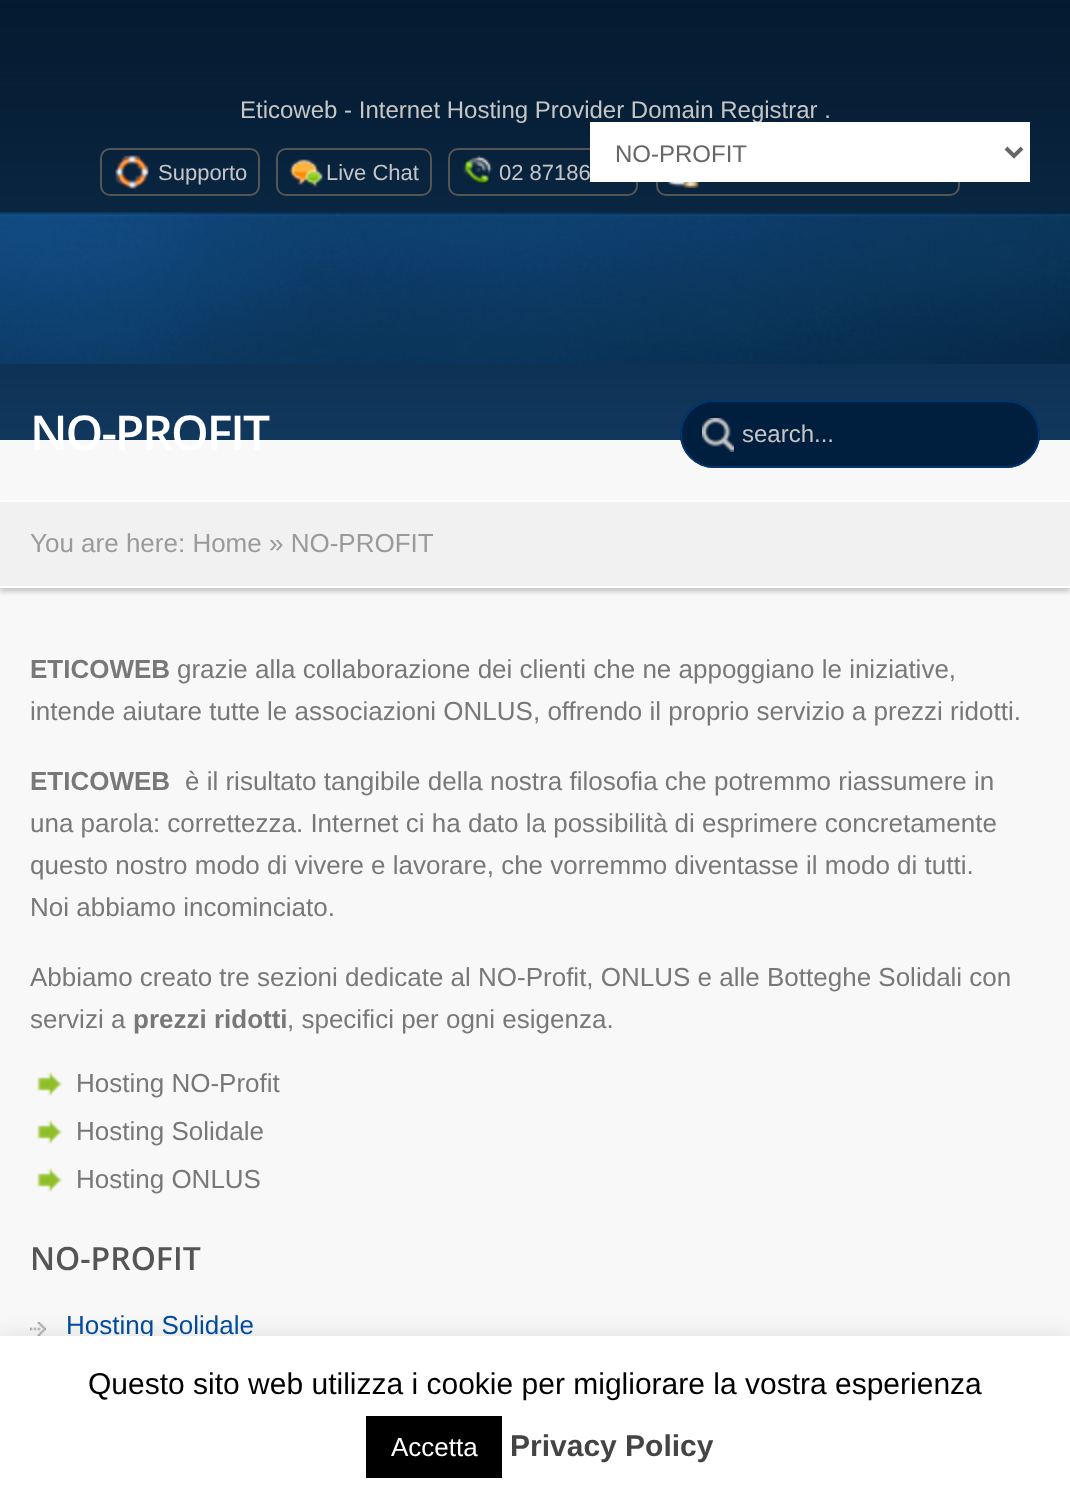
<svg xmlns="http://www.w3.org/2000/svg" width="1070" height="1501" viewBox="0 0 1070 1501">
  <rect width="100%" height="100%" fill="#f8f8f8"/>
  <image x="0" y="0" width="1070" height="440" href="img/1.png"/>
  <image x="115" y="155" width="34" height="34" href="img/2.png"/>
  <rect x="101" y="149" width="158" height="46" rx="9" fill="none" stroke="#555" stroke-width="2"/>
  <image x="289" y="159" width="34" height="29" href="img/3.png"/>
  <rect x="277" y="149" width="154" height="46" rx="9" fill="none" stroke="#555" stroke-width="2"/>
  <image x="463" y="155" width="30" height="30" href="img/4.png"/>
  <rect x="449" y="149" width="188" height="46" rx="9" fill="none" stroke="#555" stroke-width="2"/>
  <image x="668" y="182" width="32" height="6" href="img/5.png"/>
  <rect x="657" y="149" width="302" height="46" rx="9" fill="none" stroke="#555" stroke-width="2"/>
  <image x="0" y="212" width="1070" height="152" href="img/6.png"/>
  <rect x="680" y="400" width="360" height="68" rx="34" fill="#001e3d"/>
  <image x="702" y="418" width="32" height="34" href="img/7.png"/>
  <rect x="681" y="401" width="358" height="66" rx="33" fill="none" stroke="#003773" stroke-width="2"/>
  <path d="M0 504h1070v88H0z" fill="#cacaca" filter="blur(2px)"/>
  <path d="M0 502h1070v84H0z" fill="#f1f1f1"/>
  <path d="M0 500h1070v2H0z" fill="#fff"/>
  <path d="M0 586h1070v2H0z" fill="#fff"/>
  <image x="37" y="1071" width="26" height="26" href="img/8.png"/>
  <image x="37" y="1119" width="26" height="26" href="img/8.png"/>
  <image x="37" y="1167" width="26" height="26" href="img/8.png"/>
  <image x="30" y="1322" width="16" height="14" href="img/9.png"/>
  <path d="M0 1334h1070v166H0z" fill="#acabab4d" filter="blur(10px)"/>
  <text x="240" y="118" font-family="Liberation Sans" font-size="24" fill="#c6c6c6">Eticoweb - Internet Hosting Provider Domain Registrar .</text>
  <g font-family="Liberation Sans" font-size="22" fill="#c6c6c6">
    <text x="158" y="180">Supporto</text>
    <text x="326" y="180">Live Chat</text>
    <text x="499" y="180">02 87186</text>
  </g>
  <path d="M590 122h440v60H590z" fill="#fff"/>
  <path d="M1006 148L1014 156L1022 148" fill="none" stroke="#666" stroke-width="4"/>
  <text x="615" y="162" font-family="Liberation Sans" font-size="24" fill="#666">NO-PROFIT</text>
  <text x="30" y="450" font-family="Open Sans" font-size="48" font-weight="600" letter-spacing="-2" fill="#fff">NO-PROFIT</text>
  <text x="742" y="442" font-family="Liberation Sans" font-size="24" fill="#c6c6c6">search...</text>
  <text x="30" y="552" font-family="Liberation Sans" font-size="26" fill="#9a9a9a">You are here: Home » NO-PROFIT</text>
  <text x="30" y="678" font-family="Liberation Sans" font-size="26" font-weight="bold" fill="#787878">ETICOWEB</text>
  <g font-family="Liberation Sans" font-size="26" fill="#787878">
    <text x="177" y="678">grazie alla collaborazione dei clienti che ne appoggiano le iniziative,</text>
    <text x="30" y="720">intende aiutare tutte le associazioni ONLUS, offrendo il proprio servizio a prezzi ridotti.</text>
  </g>
  <text x="30" y="790" font-family="Liberation Sans" font-size="26" font-weight="bold" fill="#787878">ETICOWEB</text>
  <g font-family="Liberation Sans" font-size="26" fill="#787878">
    <text x="185" y="790">è il risultato tangibile della nostra filosofia che potremmo riassumere in</text>
    <text x="30" y="832">una parola: correttezza. Internet ci ha dato la possibilità di esprimere concretamente</text>
    <text x="30" y="874">questo nostro modo di vivere e lavorare, che vorremmo diventasse il modo di tutti.</text>
    <text x="30" y="916">Noi abbiamo incominciato.</text>
    <text x="30" y="986">Abbiamo creato tre sezioni dedicate al NO-Profit, ONLUS e alle Botteghe Solidali con</text>
    <text x="30" y="1028">servizi a</text>
  </g>
  <text x="133" y="1028" font-family="Liberation Sans" font-size="26" font-weight="bold" fill="#787878">prezzi ridotti</text>
  <g font-family="Liberation Sans" font-size="26" fill="#787878">
    <text x="287" y="1028">, specifici per ogni esigenza.</text>
    <text x="76" y="1092">Hosting NO-Profit</text>
    <text x="76" y="1140">Hosting Solidale</text>
    <text x="76" y="1188">Hosting ONLUS</text>
  </g>
  <text x="30" y="1270" font-family="Open Sans" font-size="32" font-weight="600" fill="#555">NO-PROFIT</text>
  <text x="66" y="1334" font-family="Liberation Sans" font-size="26" fill="#004b9c">Hosting Solidale</text>
  <path d="M0 1336h1070v165H0z" fill="#fff"/>
  <text x="88" y="1394" font-family="Liberation Sans" font-size="30" fill="#000">Questo sito web utilizza i cookie per migliorare la vostra esperienza</text>
  <path d="M366 1416h136v62H366z" fill="#000"/>
  <text x="391" y="1456" font-family="Liberation Sans" font-size="26" fill="#fff">Accetta</text>
  <text x="510" y="1456" font-family="Liberation Sans" font-size="30" font-weight="bold" fill="#444">Privacy Policy</text>
</svg>
